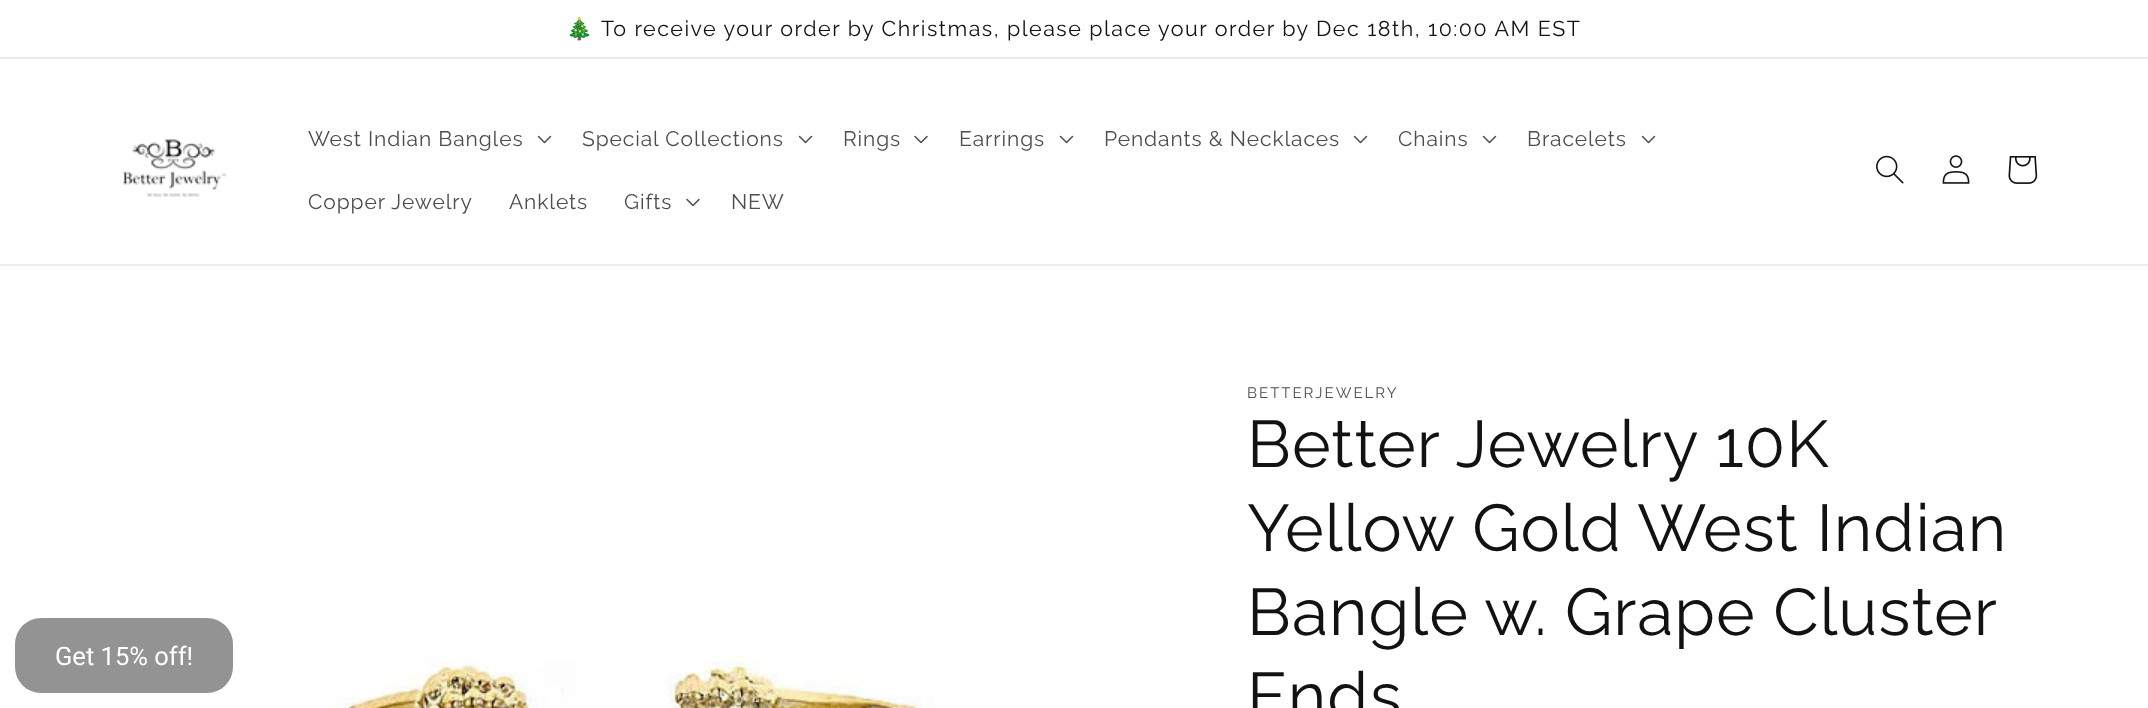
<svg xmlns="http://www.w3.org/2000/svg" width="2148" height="708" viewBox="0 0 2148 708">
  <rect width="100%" height="100%" fill="#fff"/>
  <path d="M0 57h2148v2H0z" fill="#ececec"/>
  <path d="M0 264h2148v2H0z" fill="#ececec"/>
  <image x="123" y="139" width="104" height="58" href="img/1.png"/>
  <image x="537" y="135" width="15" height="9" href="img/2.png"/>
  <image x="798" y="135" width="15" height="9" href="img/2.png"/>
  <image x="914" y="135" width="14" height="9" href="img/3.png"/>
  <image x="1059" y="135" width="15" height="9" href="img/2.png"/>
  <image x="1353" y="135" width="15" height="9" href="img/2.png"/>
  <image x="1482" y="135" width="15" height="9" href="img/2.png"/>
  <image x="1641" y="135" width="15" height="9" href="img/2.png"/>
  <image x="686" y="198" width="14" height="9" href="img/3.png"/>
  <image x="1876" y="155" width="28" height="29" href="img/4.png"/>
  <image x="1942" y="155" width="28" height="29" href="img/5.png"/>
  <image x="2008" y="156" width="30" height="28" href="img/6.png"/>
  <rect x="15" y="618" width="218" height="75" rx="26" fill="#939393"/>
  <image x="329" y="653" width="605" height="55" href="img/7.png"/>
  <text x="566" y="36" font-family="Noto Color Emoji" font-size="21.45" letter-spacing="1.5" fill="#121212">🎄</text>
  <text x="601" y="36" font-family="Raleway" font-size="21.45" letter-spacing="1.5" fill="#121212">To receive your order by Christmas, please place your order by Dec 18th, 10:00 AM EST</text>
  <g font-family="Raleway" font-size="21" letter-spacing="0.9" fill="#4d4d4d">
    <text x="308" y="146">West Indian Bangles</text>
    <text x="582" y="146">Special Collections</text>
    <text x="843" y="146">Rings</text>
    <text x="959" y="146">Earrings</text>
    <text x="1104" y="146">Pendants &amp; Necklaces</text>
    <text x="1398" y="146">Chains</text>
    <text x="1527" y="146">Bracelets</text>
    <text x="308" y="209">Copper Jewelry</text>
    <text x="509" y="209">Anklets</text>
    <text x="624" y="209">Gifts</text>
    <text x="731" y="209">NEW</text>
  </g>
  <text x="55" y="665" font-family="Roboto" font-size="25.5" fill="#fff">Get 15% off!</text>
  <text x="1247" y="398" font-family="Raleway" font-size="15" letter-spacing="2" fill="#4d4d4d">BETTERJEWELRY</text>
  <g font-family="Raleway" font-size="66" letter-spacing="1" fill="#121212">
    <text x="1247" y="467">Better Jewelry 10K</text>
    <text x="1247" y="551">Yellow Gold West Indian</text>
    <text x="1247" y="635" word-spacing="-0.5">Bangle w. Grape Cluster</text>
    <text x="1247" y="719">Ends</text>
  </g>
</svg>
